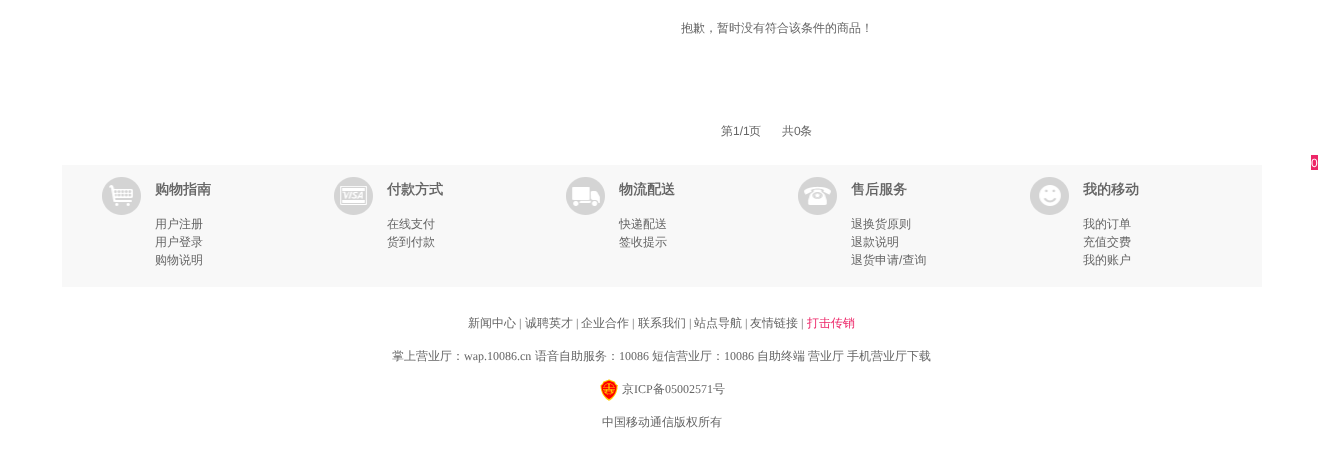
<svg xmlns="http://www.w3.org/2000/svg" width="1323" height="472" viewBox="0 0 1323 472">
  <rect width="100%" height="100%" fill="#fff"/>
  <path d="M1311 155h7v15H1311z" fill="#ed2668"/>
  <path d="M62 165h1200v122H62z" fill="#f8f8f8"/>
  <image x="102" y="177" width="39" height="38" href="img/1.png"/>
  <image x="334" y="177" width="39" height="38" href="img/2.png"/>
  <image x="566" y="177" width="39" height="38" href="img/3.png"/>
  <image x="798" y="177" width="39" height="38" href="img/4.png"/>
  <image x="1030" y="177" width="39" height="38" href="img/5.png"/>
  <image x="600" y="379" width="18" height="22" href="img/6.png"/>
  <g font-family="WenQuanYi Zen Hei" font-size="12" font-weight="500" fill="#666">
    <text x="681" y="32">抱歉，暂时没有符合该条件的商品！</text>
    <text x="721" y="135">第</text>
  </g>
  <text x="733" y="135" font-family="Liberation Sans" font-size="12" fill="#666">1/1</text>
  <g font-family="WenQuanYi Zen Hei" font-size="12" font-weight="500" fill="#666">
    <text x="749" y="135">页</text>
    <text x="782" y="135">共</text>
  </g>
  <text x="794" y="135" font-family="Liberation Sans" font-size="12" fill="#666">0</text>
  <text x="800" y="135" font-family="WenQuanYi Zen Hei" font-size="12" font-weight="500" fill="#666">条</text>
  <text x="1311" y="167" font-family="Liberation Sans" font-size="12" fill="#fff">0</text>
  <text x="155" y="194" font-family="WenQuanYi Zen Hei" font-size="14" font-weight="bold" fill="#666">购物指南</text>
  <g font-family="WenQuanYi Zen Hei" font-size="12" font-weight="500" fill="#666">
    <text x="155" y="228">用户注册</text>
    <text x="155" y="246">用户登录</text>
    <text x="155" y="264">购物说明</text>
  </g>
  <text x="387" y="194" font-family="WenQuanYi Zen Hei" font-size="14" font-weight="bold" fill="#666">付款方式</text>
  <g font-family="WenQuanYi Zen Hei" font-size="12" font-weight="500" fill="#666">
    <text x="387" y="228">在线支付</text>
    <text x="387" y="246">货到付款</text>
  </g>
  <text x="619" y="194" font-family="WenQuanYi Zen Hei" font-size="14" font-weight="bold" fill="#666">物流配送</text>
  <g font-family="WenQuanYi Zen Hei" font-size="12" font-weight="500" fill="#666">
    <text x="619" y="228">快递配送</text>
    <text x="619" y="246">签收提示</text>
  </g>
  <text x="851" y="194" font-family="WenQuanYi Zen Hei" font-size="14" font-weight="bold" fill="#666">售后服务</text>
  <g font-family="WenQuanYi Zen Hei" font-size="12" font-weight="500" fill="#666">
    <text x="851" y="228">退换货原则</text>
    <text x="851" y="246">退款说明</text>
    <text x="851" y="264">退货申请 查询</text>
  </g>
  <text x="899" y="264" font-family="Liberation Sans" font-size="12" fill="#666">/</text>
  <text x="1083" y="194" font-family="WenQuanYi Zen Hei" font-size="14" font-weight="bold" fill="#666">我的移动</text>
  <g font-family="WenQuanYi Zen Hei" font-size="12" font-weight="500" fill="#666">
    <text x="1083" y="228">我的订单</text>
    <text x="1083" y="246">充值交费</text>
    <text x="1083" y="264">我的账户</text>
    <text x="468" y="327">新闻中心</text>
  </g>
  <text x="519" y="327" font-family="Liberation Serif" font-size="12" fill="#666">|</text>
  <text x="525" y="327" font-family="WenQuanYi Zen Hei" font-size="12" font-weight="500" fill="#666">诚聘英才</text>
  <text x="576" y="327" font-family="Liberation Serif" font-size="12" fill="#666">|</text>
  <text x="581" y="327" font-family="WenQuanYi Zen Hei" font-size="12" font-weight="500" fill="#666">企业合作</text>
  <text x="632" y="327" font-family="Liberation Serif" font-size="12" fill="#666">|</text>
  <text x="638" y="327" font-family="WenQuanYi Zen Hei" font-size="12" font-weight="500" fill="#666">联系我们</text>
  <text x="689" y="327" font-family="Liberation Serif" font-size="12" fill="#666">|</text>
  <text x="694" y="327" font-family="WenQuanYi Zen Hei" font-size="12" font-weight="500" fill="#666">站点导航</text>
  <text x="745" y="327" font-family="Liberation Serif" font-size="12" fill="#666">|</text>
  <text x="750" y="327" font-family="WenQuanYi Zen Hei" font-size="12" font-weight="500" fill="#666">友情链接</text>
  <text x="801" y="327" font-family="Liberation Serif" font-size="12" fill="#666">|</text>
  <text x="807" y="327" font-family="WenQuanYi Zen Hei" font-size="12" font-weight="500" fill="#ed2668">打击传销</text>
  <text x="392" y="360" font-family="WenQuanYi Zen Hei" font-size="12" font-weight="500" fill="#666">掌上营业厅：</text>
  <text x="464" y="360" font-family="Liberation Serif" font-size="12" fill="#666">wap.10086.cn</text>
  <text x="535" y="360" font-family="WenQuanYi Zen Hei" font-size="12" font-weight="500" fill="#666">语音自助服务：</text>
  <text x="619" y="360" font-family="Liberation Serif" font-size="12" fill="#666">10086</text>
  <text x="652" y="360" font-family="WenQuanYi Zen Hei" font-size="12" font-weight="500" fill="#666">短信营业厅：</text>
  <text x="724" y="360" font-family="Liberation Serif" font-size="12" fill="#666">10086</text>
  <g font-family="WenQuanYi Zen Hei" font-size="12" font-weight="500" fill="#666">
    <text x="757" y="360">自助终端</text>
    <text x="808" y="360">营业厅</text>
    <text x="847" y="360">手机营业厅下载</text>
    <text x="622" y="393">京</text>
  </g>
  <text x="634" y="393" font-family="Liberation Serif" font-size="12" fill="#666">ICP</text>
  <text x="653" y="393" font-family="WenQuanYi Zen Hei" font-size="12" font-weight="500" fill="#666">备</text>
  <text x="665" y="393" font-family="Liberation Serif" font-size="12" fill="#666">05002571</text>
  <g font-family="WenQuanYi Zen Hei" font-size="12" font-weight="500" fill="#666">
    <text x="713" y="393">号</text>
    <text x="602" y="426">中国移动通信版权所有</text>
  </g>
</svg>
